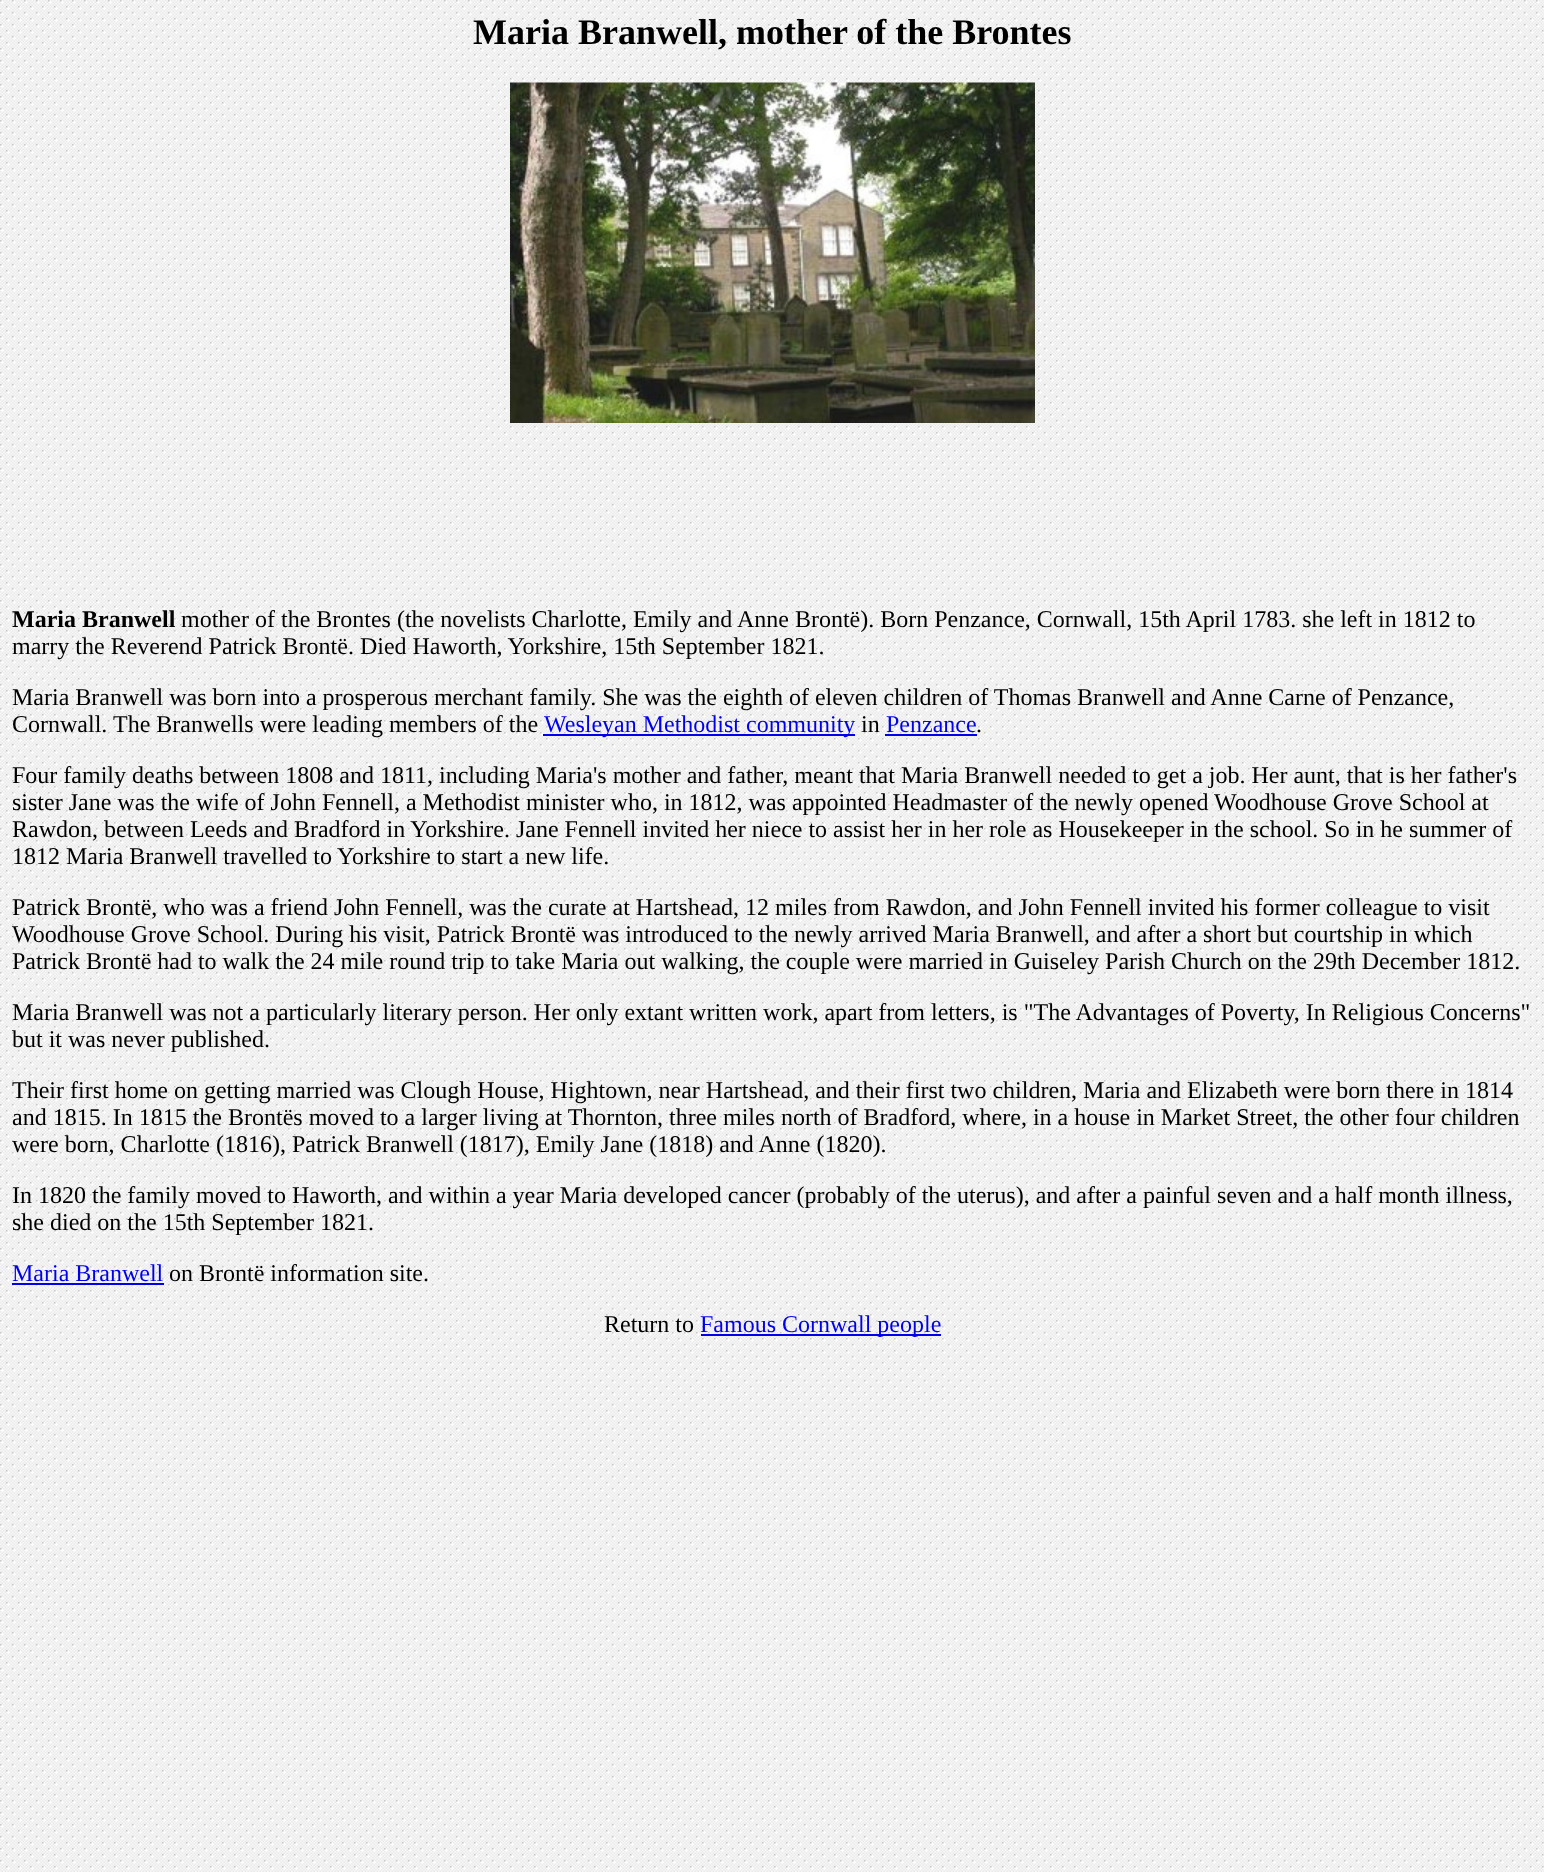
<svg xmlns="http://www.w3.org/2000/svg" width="1544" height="1872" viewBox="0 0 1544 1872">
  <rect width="100%" height="100%" fill="#fff"/>
  <image x="0" y="0" width="1544" height="1872" href="img/1.png"/>
  <image x="510" y="82" width="525" height="341" href="img/2.png"/>
  <path d="M543 734h312v2H543z" fill="#00e"/>
  <path d="M885 734h92v2H885z" fill="#00e"/>
  <path d="M12 1283h152v2H12z" fill="#00e"/>
  <path d="M701 1334h240v2H701z" fill="#00e"/>
  <text x="473" y="44" font-family="Liberation Serif" font-size="36" font-weight="bold" fill="#000">Maria Branwell, mother of the Brontes</text>
  <text x="12" y="627" font-family="Liberation Serif" font-size="24" font-weight="bold" fill="#000">Maria Branwell</text>
  <g font-family="Liberation Serif" font-size="24" fill="#000">
    <text x="181" y="627">mother of the Brontes (the novelists Charlotte, Emily and Anne Brontë). Born Penzance, Cornwall, 15th April 1783. she left in 1812 to</text>
    <text x="12" y="654">marry the Reverend Patrick Brontë. Died Haworth, Yorkshire, 15th September 1821.</text>
    <text x="12" y="705">Maria Branwell was born into a prosperous merchant family. She was the eighth of eleven children of Thomas Branwell and Anne Carne of Penzance,</text>
    <text x="12" y="732">Cornwall.</text>
    <text x="113" y="732">The Branwells were leading members of the</text>
  </g>
  <text x="544" y="732" font-family="Liberation Serif" font-size="24" fill="#00e">Wesleyan Methodist community</text>
  <text x="861" y="732" font-family="Liberation Serif" font-size="24" fill="#000">in</text>
  <text x="886" y="732" font-family="Liberation Serif" font-size="24" fill="#00e">Penzance</text>
  <g font-family="Liberation Serif" font-size="24" fill="#000">
    <text x="976" y="732">.</text>
    <text x="12" y="783">Four family deaths between 1808 and 1811, including Maria's mother and father, meant that Maria Branwell needed to get a job. Her aunt, that is her father's</text>
    <text x="12" y="810">sister Jane was the wife of John Fennell, a Methodist minister who, in 1812, was appointed Headmaster of the newly opened Woodhouse Grove School at</text>
    <text x="12" y="837">Rawdon, between Leeds and Bradford in Yorkshire. Jane Fennell invited her niece to assist her in her role as Housekeeper in the school. So in he summer of</text>
    <text x="12" y="864">1812 Maria Branwell travelled to Yorkshire to start a new life.</text>
    <text x="12" y="915">Patrick Brontë, who was a friend John Fennell, was the curate at Hartshead, 12 miles from Rawdon, and John Fennell invited his former colleague to visit</text>
    <text x="12" y="942">Woodhouse Grove School. During his visit, Patrick Brontë was introduced to the newly arrived Maria Branwell, and after a short but courtship in which</text>
    <text x="12" y="969">Patrick Brontë had to walk the 24 mile round trip to take Maria out walking, the couple were married in Guiseley Parish Church on the 29th December 1812.</text>
    <text x="12" y="1020">Maria Branwell was not a particularly literary person. Her only extant written work, apart from letters, is "The Advantages of Poverty, In Religious Concerns"</text>
    <text x="12" y="1047">but it was never published.</text>
    <text x="12" y="1098">Their first home on getting married was Clough House, Hightown, near Hartshead, and their first two children, Maria and Elizabeth were born there in 1814</text>
    <text x="12" y="1125">and 1815. In 1815 the Brontës moved to a larger living at Thornton, three miles north of Bradford, where, in a house in Market Street, the other four children</text>
    <text x="12" y="1152">were born, Charlotte (1816), Patrick Branwell (1817), Emily Jane (1818) and Anne (1820).</text>
    <text x="12" y="1203">In 1820 the family moved to Haworth, and within a year Maria developed cancer (probably of the uterus), and after a painful seven and a half month illness,</text>
    <text x="12" y="1230">she died on the 15th September 1821.</text>
  </g>
  <text x="12" y="1281" font-family="Liberation Serif" font-size="24" fill="#00e">Maria Branwell</text>
  <g font-family="Liberation Serif" font-size="24" fill="#000">
    <text x="169" y="1281">on Brontë information site.</text>
    <text x="604" y="1332">Return to</text>
  </g>
  <text x="700" y="1332" font-family="Liberation Serif" font-size="24" fill="#00e">Famous Cornwall people</text>
</svg>
